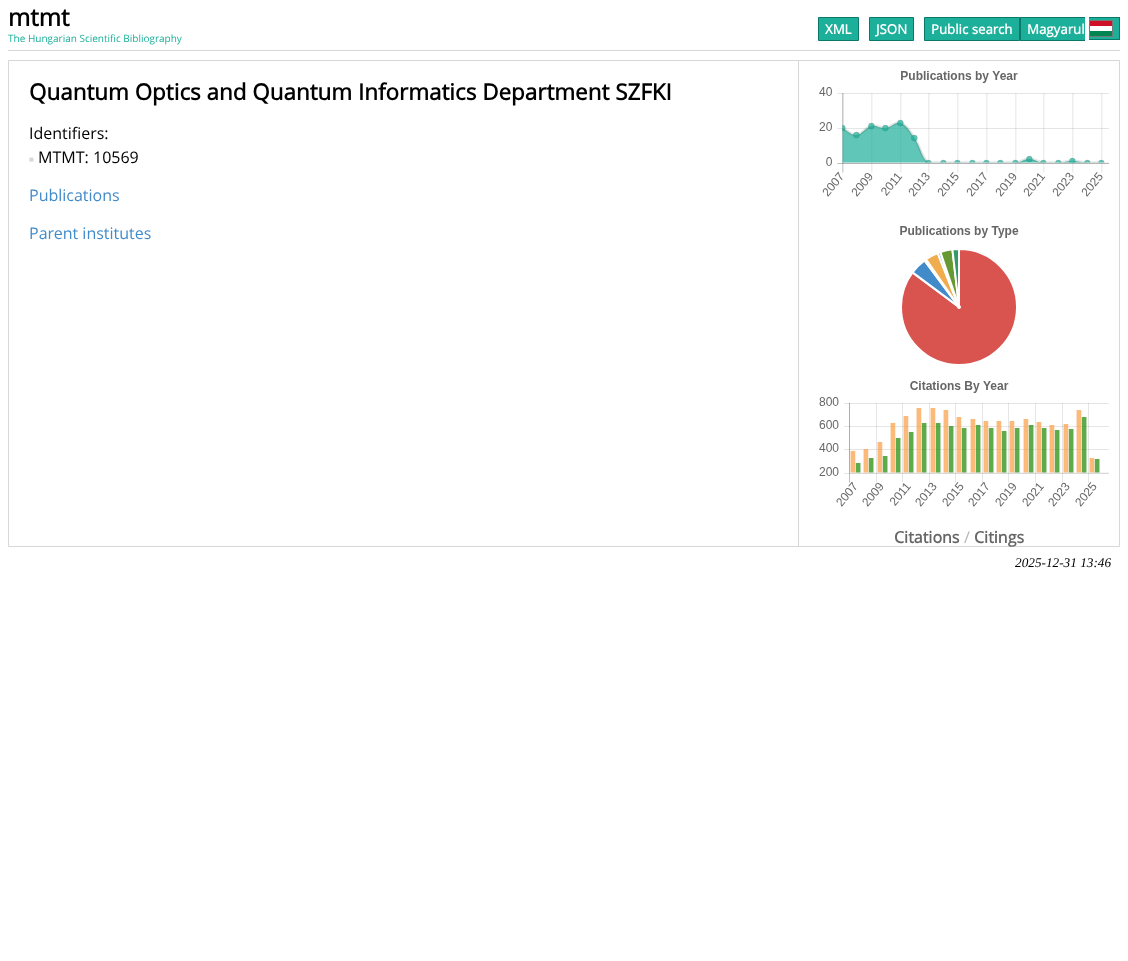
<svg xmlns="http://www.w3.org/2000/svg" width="1128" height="961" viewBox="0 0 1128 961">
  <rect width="100%" height="100%" fill="#fff"/>
  <path d="M8 50h1112v1H8z" fill="#d7d7d7"/>
  <path d="M818.5 17.5h40v23H818.5z" fill="#1caf9a" stroke="#0b7969"/>
  <path d="M869.5 17.5h44v23H869.5z" fill="#1caf9a" stroke="#0b7969"/>
  <path d="M924.5 17.5h95v23H924.5z" fill="#1caf9a" stroke="#0b7969"/>
  <path d="M1021 18h64v22H1021z" fill="#1caf9a"/>
  <path d="M1020 17h65v1H1020z" fill="#0b7969"/>
  <path d="M1020 40h65v1H1020z" fill="#0b7969"/>
  <path d="M1020 17h1v24H1020z" fill="#0b7969"/>
  <path d="M1089 18h30v21H1089z" fill="#1caf9a"/>
  <path d="M1089 17h31v1H1089z" fill="#0b7969"/>
  <path d="M1119 17h1v23H1119z" fill="#0b7969"/>
  <path d="M1089 39h31v1H1089z" fill="#0b7969"/>
  <path d="M1089.5 20.5h23v16H1089.5z" fill="none" stroke="#777"/>
  <image x="1090" y="21" width="22" height="15" href="img/1.png"/>
  <path d="M8.5 60.5h1111v486H8.5z" fill="none" stroke="#d7d7d7"/>
  <path d="M798 61h1v485H798z" fill="#d7d7d7"/>
  <image x="819" y="71" width="290" height="126" href="img/2.png"/>
  <image x="900" y="226" width="119" height="138" href="img/3.png"/>
  <image x="819" y="381" width="290" height="126" href="img/4.png"/>
  <text x="8" y="26" font-family="Open Sans" font-size="24" font-weight="bold" fill="#000">mtmt</text>
  <text x="8" y="42" font-family="Open Sans" font-size="10" fill="#1caf9a">The Hungarian Scientific Bibliography</text>
  <g font-family="Open Sans" font-size="13.25" font-weight="bold" fill="#fff">
    <text x="825" y="34">XML</text>
    <text x="876" y="34">JSON</text>
    <text x="931" y="34">Public search</text>
    <text x="1027" y="34">Magyarul</text>
  </g>
  <text x="29" y="100" font-family="Open Sans" font-size="22.4" font-weight="bold" fill="#000">Quantum Optics and Quantum Informatics Department SZFKI</text>
  <text x="29" y="139" font-family="Open Sans" font-size="16" fill="#000">Identifiers:</text>
  <text x="29" y="162" font-family="Liberation Serif" font-size="8" fill="#d7d7d7">■</text>
  <text x="38" y="163" font-family="Open Sans" font-size="16" fill="#000">MTMT: 10569</text>
  <g font-family="Open Sans" font-size="16" fill="#428bca">
    <text x="29" y="201">Publications</text>
    <text x="29" y="239">Parent institutes</text>
  </g>
  <text x="894" y="543" font-family="Open Sans" font-size="16" font-weight="bold" fill="#666">Citations</text>
  <text x="964" y="543" font-family="Open Sans" font-size="16" fill="#b7b7b7">/</text>
  <text x="974" y="543" font-family="Open Sans" font-size="16" font-weight="bold" fill="#666">Citings</text>
  <text x="1015" y="567" font-family="Liberation Serif" font-size="13.25" font-style="italic" fill="#000">2025-12-31 13:46</text>
</svg>
